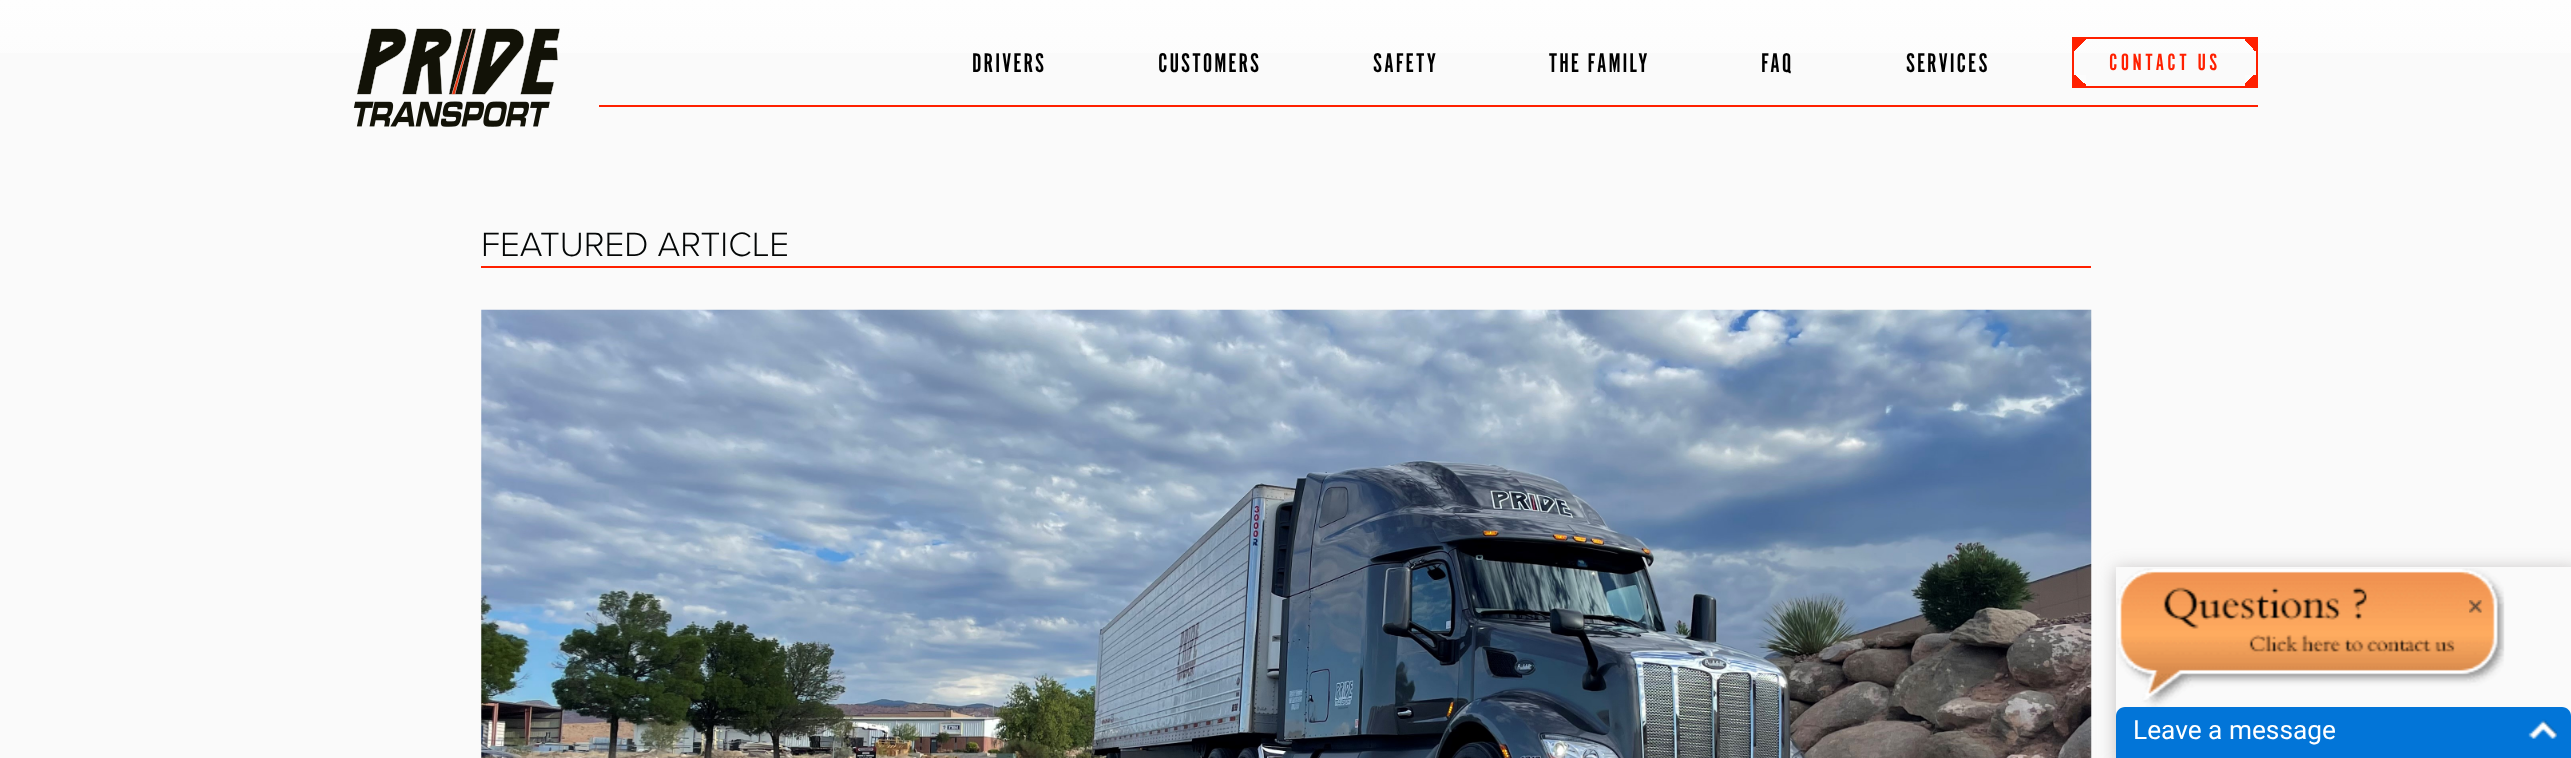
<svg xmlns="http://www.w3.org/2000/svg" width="2571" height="758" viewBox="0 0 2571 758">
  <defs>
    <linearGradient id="g1" gradientUnits="userSpaceOnUse" x1="1286" y1="0" x2="1286" y2="156"><stop offset="0" stop-color="#fefefe"/><stop offset="0.45" stop-color="#fcfcfc"/><stop offset="1" stop-color="#f9f9f9"/></linearGradient>
    <linearGradient id="g2" gradientUnits="userSpaceOnUse" x1="2244" y1="74" x2="2256" y2="86"><stop offset="0.45" stop-color="#fcfcfc"/><stop offset="0.45" stop-color="#ff2000"/></linearGradient>
    <linearGradient id="g3" gradientUnits="userSpaceOnUse" x1="2085" y1="74" x2="2074" y2="86"><stop offset="0.45" stop-color="#fcfcfc"/><stop offset="0.45" stop-color="#ff2000"/></linearGradient>
    <linearGradient id="g4" gradientUnits="userSpaceOnUse" x1="2244" y1="50" x2="2256" y2="39"><stop offset="0.45" stop-color="#fdfdfd"/><stop offset="0.45" stop-color="#ff2000"/></linearGradient>
    <linearGradient id="g5" gradientUnits="userSpaceOnUse" x1="2085" y1="50" x2="2074" y2="39"><stop offset="0.45" stop-color="#fdfdfd"/><stop offset="0.45" stop-color="#ff2000"/></linearGradient>
    <clipPath id="clip1"><path d="M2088 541H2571V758H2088ZM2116 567H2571V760H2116Z" clip-rule="evenodd"/></clipPath>
  </defs>
  <rect width="100%" height="100%" fill="#fafafa"/>
  <path d="M0 0h2571v53H0z" fill="url(#g1)"/>
  <image x="353" y="28" width="207" height="99" href="img/1.png"/>
  <path d="M599 105h1659v2H599z" fill="#ff2000"/>
  <path d="M2245 75h11v11H2245z" fill="url(#g2)"/>
  <path d="M2074 75h12v11H2074z" fill="url(#g3)"/>
  <path d="M2245 39h11v12H2245z" fill="url(#g4)"/>
  <path d="M2074 39h12v12H2074z" fill="url(#g5)"/>
  <path d="M2073 38h184v49H2073z" fill="none" stroke="#ff2000" stroke-width="2"/>
  <path d="M481 266h1610v2H481z" fill="#ff2000"/>
  <image x="481" y="309" width="1611" height="449" href="img/2.png"/>
  <g clip-path="url(#clip1)">
    <path d="M2116 569h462v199H2116z" fill="#8b858580" filter="blur(9px)"/>
  </g>
  <image x="2116" y="568" width="389" height="139" href="img/3.png"/>
  <image x="2469" y="600" width="13" height="13" href="img/4.png"/>
  <path d="M2125 707H2562C2567 707 2571 711 2571 716V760H2116V716C2116 711 2120 707 2125 707Z" fill="#0275d8"/>
  <image x="2528" y="719" width="29" height="20" href="img/5.png"/>
  <g font-family="'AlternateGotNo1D'" font-size="28" letter-spacing="1.9" fill="#000">
    <text x="972" y="72">DRIVERS</text>
    <text x="1158" y="72">CUSTOMERS</text>
    <text x="1373" y="72">SAFETY</text>
    <text x="1549" y="72">THE FAMILY</text>
    <text x="1761" y="72">FAQ</text>
    <text x="1906" y="72">SERVICES</text>
  </g>
  <text x="2109" y="70" font-family="'AlternateGotNo1D'" font-size="24.5" letter-spacing="3.4" fill="#ff2000">CONTACT US</text>
  <text x="481" y="256" font-family="Proxima Nova" font-size="35" font-weight="300" fill="#030606">FEATURED ARTICLE</text>
  <text x="2133" y="739" font-family="Roboto" font-size="26.25" fill="#fff">Leave a message</text>
</svg>
